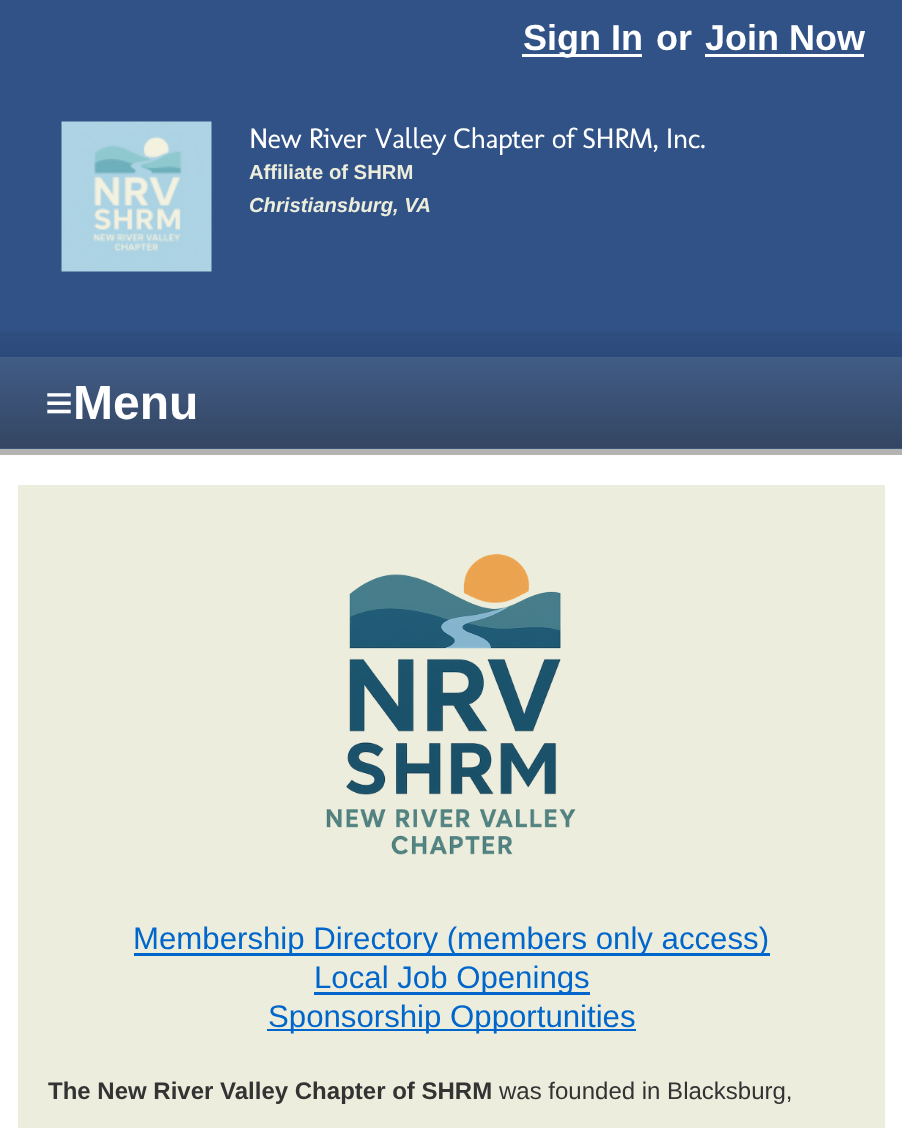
<svg xmlns="http://www.w3.org/2000/svg" width="902" height="1128" viewBox="0 0 902 1128">
  <rect width="100%" height="100%" fill="#fff"/>
  <path d="M0 0h902v449H0z" fill="#315286"/>
  <image x="0" y="331" width="902" height="118" href="img/1.png"/>
  <path d="M0 449h902v6H0z" fill="#b3b3b3"/>
  <path d="M522 54h120v3H522z" fill="#fff"/>
  <path d="M705 54h159v3H705z" fill="#fff"/>
  <image x="61" y="121" width="151" height="151" href="img/2.png"/>
  <path d="M0 357h902v92H0z" fill="#ffffff1a"/>
  <path d="M18 485h867v643H18z" fill="#eceddc"/>
  <image x="326" y="554" width="250" height="301" href="img/3.png"/>
  <path d="M134 953h636v3H134z" fill="#06c"/>
  <path d="M314 992h276v3H314z" fill="#06c"/>
  <path d="M267 1029h369v2H267z" fill="#06c"/>
  <g font-family="Liberation Sans" font-size="36" font-weight="bold" fill="#fff">
    <text x="523" y="50">Sign In</text>
    <text x="656" y="50">or</text>
    <text x="705" y="50">Join Now</text>
  </g>
  <text x="249" y="148" font-family="Molengo" font-size="28.75" letter-spacing="-0.6" fill="#fff">New River Valley Chapter of SHRM, Inc.</text>
  <text x="249" y="179" font-family="Liberation Sans" font-size="20.25" font-weight="bold" fill="#eceddc">Affiliate of SHRM</text>
  <text x="249" y="212" font-family="Liberation Sans" font-size="20.25" font-weight="bold" font-style="italic" fill="#eceddc">Christiansburg, VA</text>
  <text x="45" y="419" font-family="Liberation Sans" font-size="48" font-weight="bold" fill="#fff">≡Menu</text>
  <g font-family="Liberation Sans" font-size="31.2" fill="#06c">
    <text x="133" y="949">Membership Directory (members only access)</text>
    <text x="314" y="988">Local Job Openings</text>
    <text x="268" y="1027">Sponsorship Opportunities</text>
  </g>
  <text x="48" y="1099" font-family="Liberation Sans" font-size="24" font-weight="bold" fill="#333">The New River Valley Chapter of SHRM</text>
  <text x="499" y="1099" font-family="Liberation Sans" font-size="24" fill="#333">was founded in Blacksburg,</text>
</svg>
